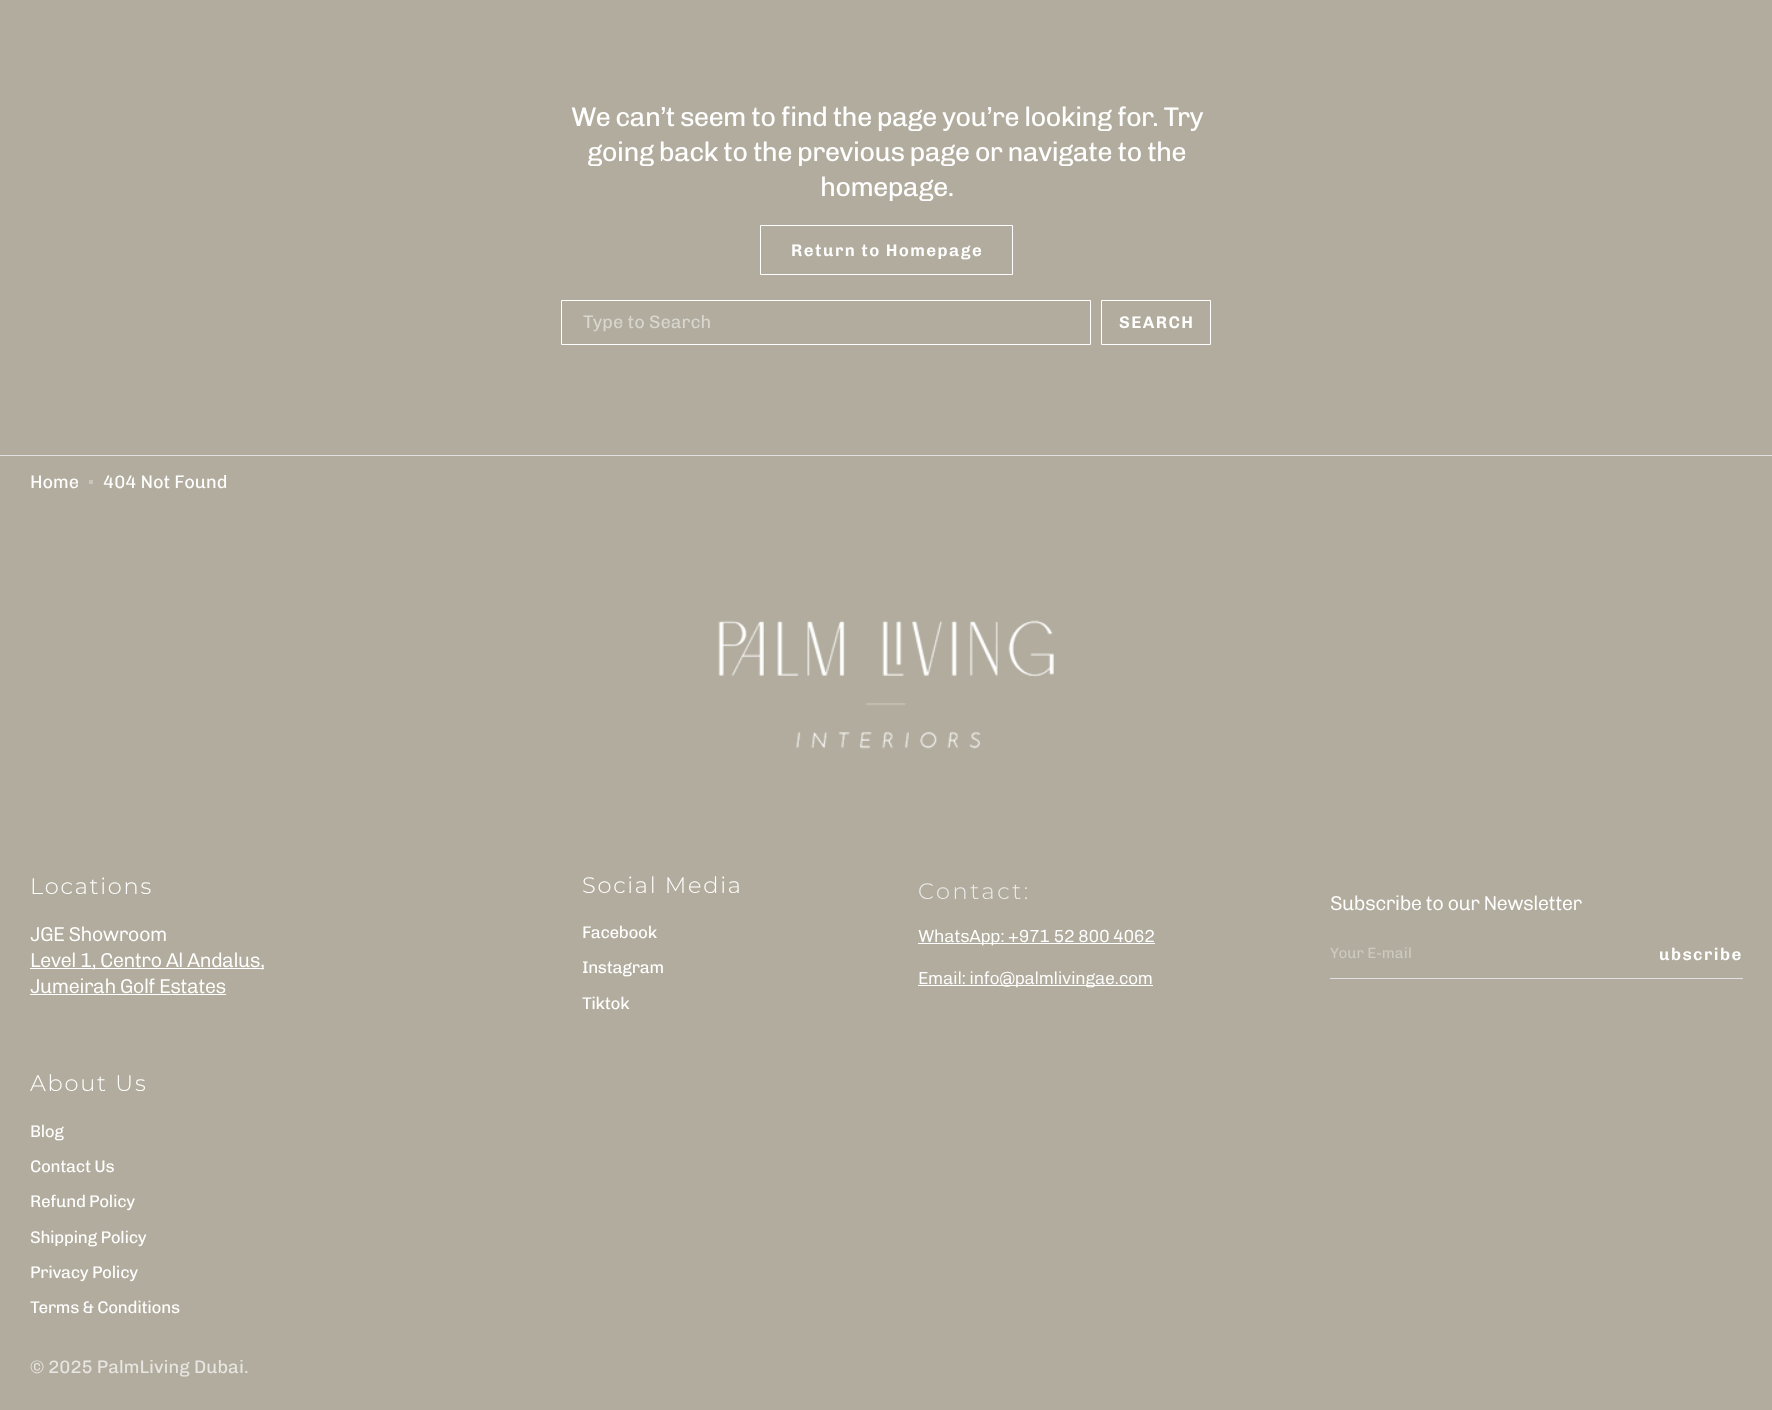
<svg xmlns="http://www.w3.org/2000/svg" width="1772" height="1410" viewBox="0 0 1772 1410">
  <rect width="100%" height="100%" fill="#b1ac9d"/>
  <path d="M760.5 225.5h252v49H760.5z" fill="none" stroke="#fff"/>
  <path d="M561.5 300.5h529v44H561.5z" fill="none" stroke="#fff"/>
  <path d="M1101.5 300.5h109v44H1101.5z" fill="none" stroke="#fff"/>
  <path d="M0 455h1772v1H0z" fill="#e1e1e1"/>
  <path d="M89 480h4v4H89z" fill="#c8c5ba"/>
  <image x="718" y="620" width="336" height="129" href="img/1.png"/>
  <path d="M30 968h234v1H30z" fill="#fff"/>
  <path d="M30 994h196v1H30z" fill="#fff"/>
  <path d="M918 943h237v1H918z" fill="#fff"/>
  <path d="M918 985h235v1H918z" fill="#fff"/>
  <path d="M1330 978h413v1H1330z" fill="#e1e1e1"/>
  <g font-family="Chivo" font-size="27" letter-spacing="-0.8" fill="#fff">
    <text x="571" y="126">We can’t seem to find the page you’re looking for. Try</text>
    <text x="587" y="161">going back to the previous page or navigate to the</text>
    <text x="820" y="196">homepage.</text>
  </g>
  <text x="791" y="256" font-family="Chivo" font-size="16.9" font-weight="600" letter-spacing="1.4" fill="#fff">Return to Homepage</text>
  <text x="583" y="328" font-family="Chivo" font-size="18.1" fill="#d8d6ce">Type to Search</text>
  <text x="1119" y="328" font-family="Chivo" font-size="16.9" font-weight="600" letter-spacing="1.4" fill="#fff">SEARCH</text>
  <g font-family="Chivo" font-size="18.1" fill="#fff">
    <text x="30" y="488">Home</text>
    <text x="103" y="488">404 Not Found</text>
  </g>
  <text x="30" y="894" font-family="Montserrat" font-size="22.5" font-weight="300" letter-spacing="1.75" fill="#fff">Locations</text>
  <g font-family="Chivo" font-size="20" font-weight="300" letter-spacing="-0.6" fill="#fff">
    <text x="30" y="941">JGE Showroom</text>
    <text x="30" y="967">Level 1, Centro Al Andalus,</text>
    <text x="30" y="993">Jumeirah Golf Estates</text>
  </g>
  <text x="582" y="893" font-family="Montserrat" font-size="22.5" font-weight="300" letter-spacing="1.75" fill="#fff">Social Media</text>
  <g font-family="Chivo" font-size="16.9" letter-spacing="-0.35" fill="#fff">
    <text x="582" y="938">Facebook</text>
    <text x="582" y="973">Instagram</text>
    <text x="582" y="1009">Tiktok</text>
  </g>
  <text x="918" y="899" font-family="Montserrat" font-size="22.5" font-weight="300" letter-spacing="2.5" fill="#ebebeb">Contact:</text>
  <g font-family="Chivo" font-size="17.5" font-weight="300" letter-spacing="-0.35" fill="#fff">
    <text x="918" y="942">WhatsApp: +971 52 800 4062</text>
    <text x="918" y="984">Email: info@palmlivingae.com</text>
  </g>
  <text x="30" y="1091" font-family="Montserrat" font-size="22.5" font-weight="300" letter-spacing="1.75" fill="#fff">About Us</text>
  <g font-family="Chivo" font-size="16.9" letter-spacing="-0.35" fill="#fff">
    <text x="30" y="1137">Blog</text>
    <text x="30" y="1172">Contact Us</text>
    <text x="30" y="1207">Refund Policy</text>
    <text x="30" y="1243">Shipping Policy</text>
    <text x="30" y="1278">Privacy Policy</text>
    <text x="30" y="1313">Terms &amp; Conditions</text>
  </g>
  <text x="1330" y="910" font-family="Chivo" font-size="20" font-weight="300" letter-spacing="-0.6" fill="#fff">Subscribe to our Newsletter</text>
  <text x="1330" y="958" font-family="Chivo" font-size="15" fill="#cdcac0">Your E-mail</text>
  <text x="1659" y="960" font-family="Chivo" font-size="16.9" font-weight="600" letter-spacing="1.4" fill="#fff">ubscribe</text>
  <g font-family="Chivo" font-size="18.1" fill="#e8e6e2">
    <text x="30" y="1373">© 2025 PalmLiving Dubai</text>
    <text x="244" y="1373">.</text>
  </g>
</svg>
